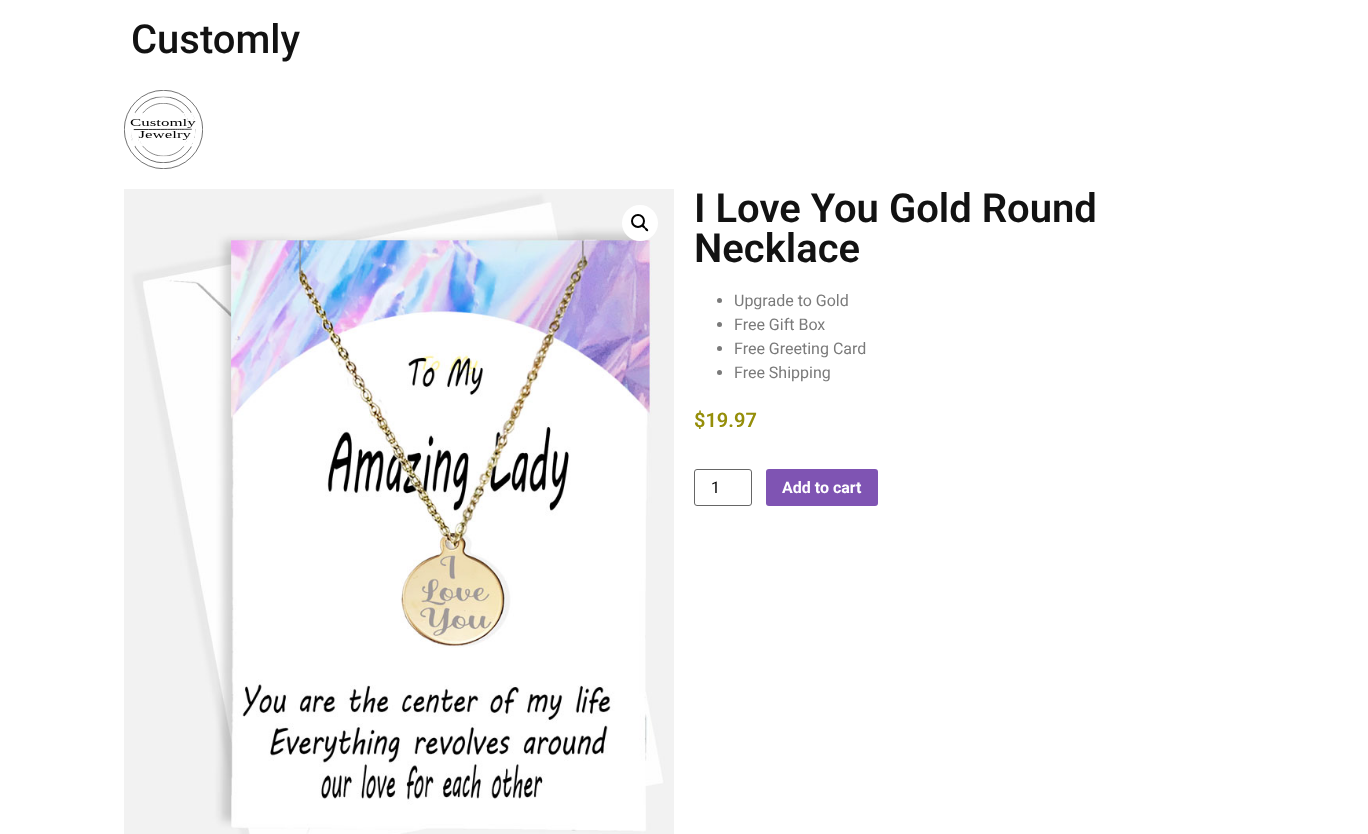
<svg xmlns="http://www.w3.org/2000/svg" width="1368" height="834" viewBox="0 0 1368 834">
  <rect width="100%" height="100%" fill="#fff"/>
  <image x="124" y="90" width="79" height="79" href="img/1.png"/>
  <image x="124" y="189" width="550" height="645" href="img/2.png"/>
  <circle cx="640" cy="223" r="18" fill="#fff"/>
  <circle cx="638" cy="221" r="6" fill="none" stroke="#000" stroke-width="2"/>
  <path d="M642 225C643.5 224 645 226.5 645.5 227.5C646.5 228 649 229.5 648 231C646.5 232 645 229.5 644.5 228.5C643.5 228 641 226.5 642 225Z" fill="#000"/>
  <circle cx="719.5" cy="300.5" r="2.5" fill="#7a7a7a"/>
  <circle cx="719.5" cy="324.5" r="2.5" fill="#7a7a7a"/>
  <circle cx="719.5" cy="348.5" r="2.5" fill="#7a7a7a"/>
  <circle cx="719.5" cy="372.5" r="2.5" fill="#7a7a7a"/>
  <rect x="694.5" y="469.5" width="57" height="36" rx="2.5" fill="none" stroke="#666"/>
  <rect x="766" y="469" width="112" height="37" rx="3" fill="#7f54b3"/>
  <text x="131" y="53" font-family="Roboto" font-size="40" font-weight="500" fill="#121212">Customly</text>
  <g font-family="Roboto" font-size="40" font-weight="600" fill="#121212">
    <text x="694" y="222">I Love You Gold Round</text>
    <text x="694" y="262">Necklace</text>
  </g>
  <g font-family="Roboto" font-size="16" fill="#7a7a7a">
    <text x="734" y="306">Upgrade to Gold</text>
    <text x="734" y="330">Free Gift Box</text>
    <text x="734" y="354">Free Greeting Card</text>
    <text x="734" y="378">Free Shipping</text>
  </g>
  <text x="694" y="427" font-family="Roboto" font-size="20" font-weight="600" fill="#958e09">$19.97</text>
  <text x="711" y="493" font-family="Roboto" font-size="16" fill="#000">1</text>
  <text x="782" y="493" font-family="Roboto" font-size="16" font-weight="bold" fill="#fff">Add to cart</text>
</svg>
